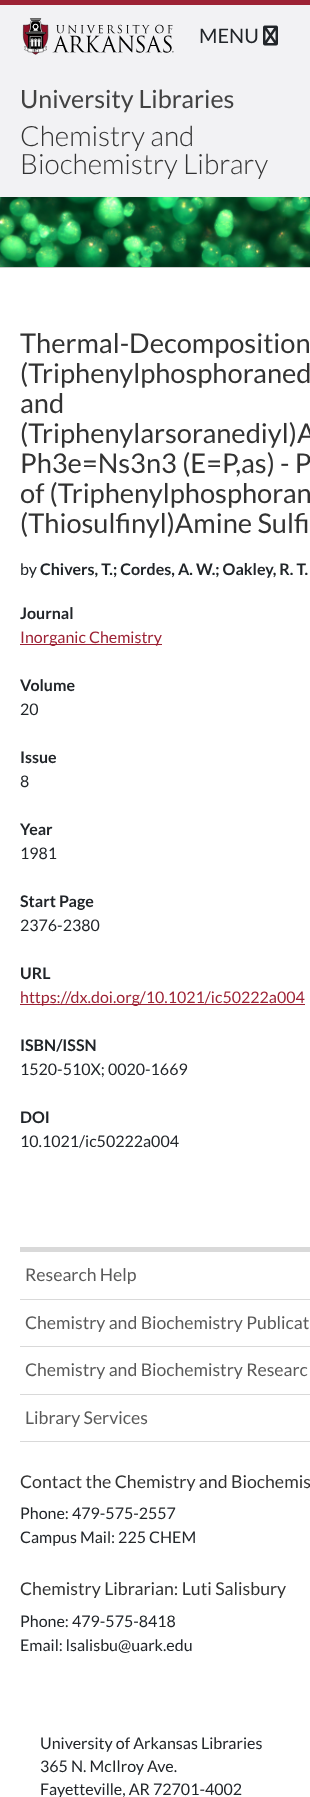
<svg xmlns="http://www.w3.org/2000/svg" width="310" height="1797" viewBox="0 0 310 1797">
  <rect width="100%" height="100%" fill="#fff"/>
  <path d="M0 5h310v192H0z" fill="#f2f2f4"/>
  <path d="M0 0h310v5H0z" fill="#9d2235"/>
  <path d="M0 267h310v1H0z" fill="#ccc"/>
  <image x="22" y="18" width="152" height="37" href="img/1.png"/>
  <image x="263" y="25" width="15" height="21" href="img/2.png"/>
  <image x="0" y="197" width="310" height="70" href="img/3.png"/>
  <path d="M20 644h142v1H20z" fill="#9d2235"/>
  <path d="M20 1004h285v1H20z" fill="#9d2235"/>
  <path d="M20 1247h290v5H20z" fill="#d9d9d9"/>
  <path d="M20 1299h290v1H20z" fill="#d9d9d9"/>
  <path d="M20 1346h290v1H20z" fill="#d9d9d9"/>
  <path d="M20 1394h290v1H20z" fill="#d9d9d9"/>
  <path d="M20 1441h290v1H20z" fill="#d9d9d9"/>
  <text x="199" y="43" font-family="Lato" font-size="20" fill="#212529">MENU</text>
  <text x="20" y="108" font-family="Lato" font-size="25" fill="#424242">University Libraries</text>
  <g font-family="Lato" font-size="28" font-weight="300" fill="#333">
    <text x="20" y="146">Chemistry and</text>
    <text x="20" y="174">Biochemistry Library</text>
  </g>
  <g font-family="Lato" font-size="27.25" fill="#333">
    <text x="20" y="353">Thermal-Decomposition</text>
    <text x="20" y="383">(Triphenylphosphoraned</text>
    <text x="20" y="413">and</text>
    <text x="20" y="443">(Triphenylarsoranediyl)A</text>
    <text x="20" y="473">Ph3e=Ns3n3 (E=P,as) - P</text>
    <text x="20" y="503">of (Triphenylphosphoran</text>
    <text x="20" y="533">(Thiosulfinyl)Amine Sulfi</text>
  </g>
  <text x="20" y="575" font-family="Lato" font-size="16" fill="#212529">by</text>
  <g font-family="Lato" font-size="16" font-weight="bold" fill="#212529">
    <text x="40" y="575">Chivers, T.; Cordes, A. W.; Oakley, R. T.</text>
    <text x="20" y="619">Journal</text>
  </g>
  <text x="20" y="643" font-family="Lato" font-size="16" fill="#9d2235">Inorganic Chemistry</text>
  <text x="20" y="691" font-family="Lato" font-size="16" font-weight="bold" fill="#212529">Volume</text>
  <text x="20" y="715" font-family="Lato" font-size="16" fill="#212529">20</text>
  <text x="20" y="763" font-family="Lato" font-size="16" font-weight="bold" fill="#212529">Issue</text>
  <text x="20" y="787" font-family="Lato" font-size="16" fill="#212529">8</text>
  <text x="20" y="835" font-family="Lato" font-size="16" font-weight="bold" fill="#212529">Year</text>
  <text x="20" y="859" font-family="Lato" font-size="16" fill="#212529">1981</text>
  <text x="20" y="907" font-family="Lato" font-size="16" font-weight="bold" fill="#212529">Start Page</text>
  <text x="20" y="931" font-family="Lato" font-size="16" fill="#212529">2376-2380</text>
  <text x="20" y="979" font-family="Lato" font-size="16" font-weight="bold" fill="#212529">URL</text>
  <text x="20" y="1003" font-family="Lato" font-size="16" fill="#9d2235">https://dx.doi.org/10.1021/ic50222a004</text>
  <text x="20" y="1051" font-family="Lato" font-size="16" font-weight="bold" fill="#212529">ISBN/ISSN</text>
  <text x="20" y="1075" font-family="Lato" font-size="16" fill="#212529">1520-510X; 0020-1669</text>
  <text x="20" y="1123" font-family="Lato" font-size="16" font-weight="bold" fill="#212529">DOI</text>
  <text x="20" y="1147" font-family="Lato" font-size="16" fill="#212529">10.1021/ic50222a004</text>
  <g font-family="Lato" font-size="17.6" fill="#5a5a5a">
    <text x="25" y="1281">Research Help</text>
    <text x="25" y="1329">Chemistry and Biochemistry Publicat</text>
    <text x="25" y="1376">Chemistry and Biochemistry Researc</text>
    <text x="25" y="1424">Library Services</text>
  </g>
  <text x="20" y="1488" font-family="Lato" font-size="17.7" fill="#333">Contact the Chemistry and Biochemis</text>
  <g font-family="Lato" font-size="16" fill="#212529">
    <text x="20" y="1519">Phone: 479-575-2557</text>
    <text x="20" y="1543">Campus Mail: 225 CHEM</text>
  </g>
  <text x="20" y="1595" font-family="Lato" font-size="17.7" fill="#333">Chemistry Librarian: Luti Salisbury</text>
  <g font-family="Lato" font-size="16" fill="#212529">
    <text x="20" y="1627">Phone: 479-575-8418</text>
    <text x="20" y="1651">Email: lsalisbu@uark.edu</text>
    <text x="40" y="1749">University of Arkansas Libraries</text>
    <text x="40" y="1772">365 N. McIlroy Ave.</text>
    <text x="40" y="1795">Fayetteville, AR 72701-4002</text>
  </g>
</svg>
